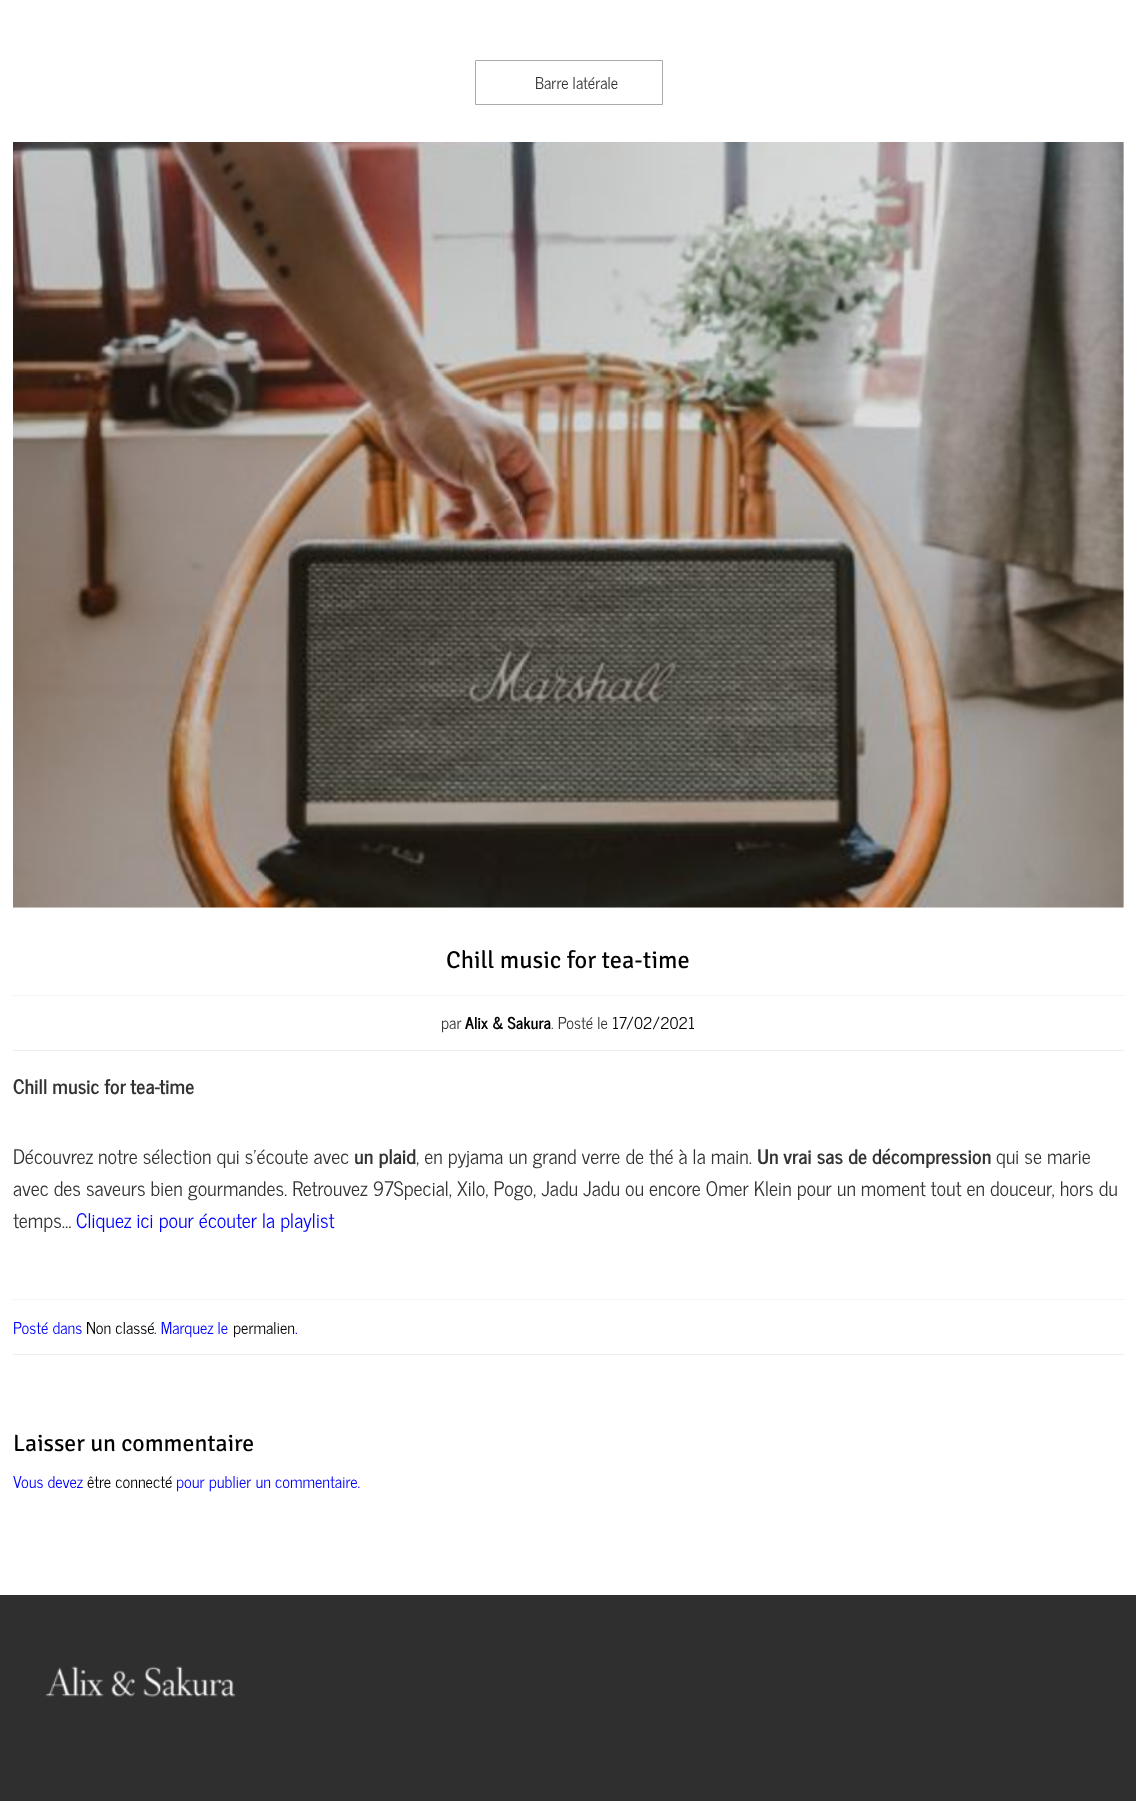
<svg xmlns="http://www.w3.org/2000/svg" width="1136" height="1801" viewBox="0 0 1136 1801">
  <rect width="100%" height="100%" fill="#fff"/>
  <path d="M475.5 60.5h187v44H475.5z" fill="none" stroke="#aaa"/>
  <image x="13" y="142" width="1111" height="766" href="img/1.png"/>
  <path d="M12.5 995.5H1124" fill="none" stroke="#eee" stroke-width="1.2" stroke-dasharray="1.25 1.25"/>
  <path d="M13 1050h1111v1H13z" fill="#ececec"/>
  <path d="M12.5 1299.5H1124" fill="none" stroke="#eee" stroke-width="1.2" stroke-dasharray="1.25 1.25"/>
  <path d="M13 1354h1111v1H13z" fill="#ececec"/>
  <path d="M0 1595h1136v206H0z" fill="#2f2f2f"/>
  <image x="45" y="1666" width="191" height="31" href="img/2.png"/>
  <text x="535" y="89" font-family="News Cycle" font-size="16.25" fill="#333">Barre latérale</text>
  <text x="446" y="968" font-family="Signika Negative" font-size="24.4" fill="#000">Chill music for tea-time</text>
  <text x="441" y="1029" font-family="News Cycle" font-size="16.25" fill="#333">par</text>
  <text x="465" y="1029" font-family="News Cycle" font-size="16.25" font-weight="bold" fill="#000">Alix &amp; Sakura</text>
  <text x="551" y="1029" font-family="News Cycle" font-size="16.25" fill="#333">. Posté le</text>
  <text x="612" y="1029" font-family="News Cycle" font-size="16.25" fill="#000">17/02/2021</text>
  <text x="13" y="1094" font-family="News Cycle" font-size="20" font-weight="bold" fill="#333">Chill music for tea-time</text>
  <text x="13" y="1164" font-family="News Cycle" font-size="20" fill="#333">Découvrez notre sélection qui s’écoute avec</text>
  <text x="354" y="1164" font-family="News Cycle" font-size="20" font-weight="bold" fill="#333">un plaid</text>
  <text x="416" y="1164" font-family="News Cycle" font-size="20" fill="#333">, en pyjama un grand verre de thé à la main.</text>
  <text x="757" y="1164" font-family="News Cycle" font-size="20" font-weight="bold" fill="#333">Un vrai sas de décompression</text>
  <g font-family="News Cycle" font-size="20" fill="#333">
    <text x="996" y="1164">qui se marie</text>
    <text x="13" y="1196">avec des saveurs bien gourmandes. Retrouvez 97Special, Xilo, Pogo, Jadu Jadu ou encore Omer Klein pour un moment tout en douceur, hors du</text>
    <text x="13" y="1228">temps…</text>
  </g>
  <text x="76" y="1228" font-family="News Cycle" font-size="20" fill="#00f">Cliquez ici pour écouter la playlist</text>
  <text x="13" y="1334" font-family="News Cycle" font-size="16.25" fill="#00f">Posté dans</text>
  <text x="86" y="1334" font-family="News Cycle" font-size="16.25" fill="#000">Non classé</text>
  <text x="154" y="1334" font-family="News Cycle" font-size="16.25" fill="#00f">. Marquez le</text>
  <text x="233" y="1334" font-family="News Cycle" font-size="16.25" fill="#000">permalien</text>
  <text x="295" y="1334" font-family="News Cycle" font-size="16.25" fill="#00f">.</text>
  <text x="13" y="1451" font-family="Signika Negative" font-size="23.75" fill="#000">Laisser un commentaire</text>
  <text x="13" y="1488" font-family="News Cycle" font-size="16.25" fill="#00f">Vous devez</text>
  <text x="87" y="1488" font-family="News Cycle" font-size="16.25" fill="#000">être connecté</text>
  <text x="176" y="1488" font-family="News Cycle" font-size="16.25" fill="#00f">pour publier un commentaire.</text>
</svg>
